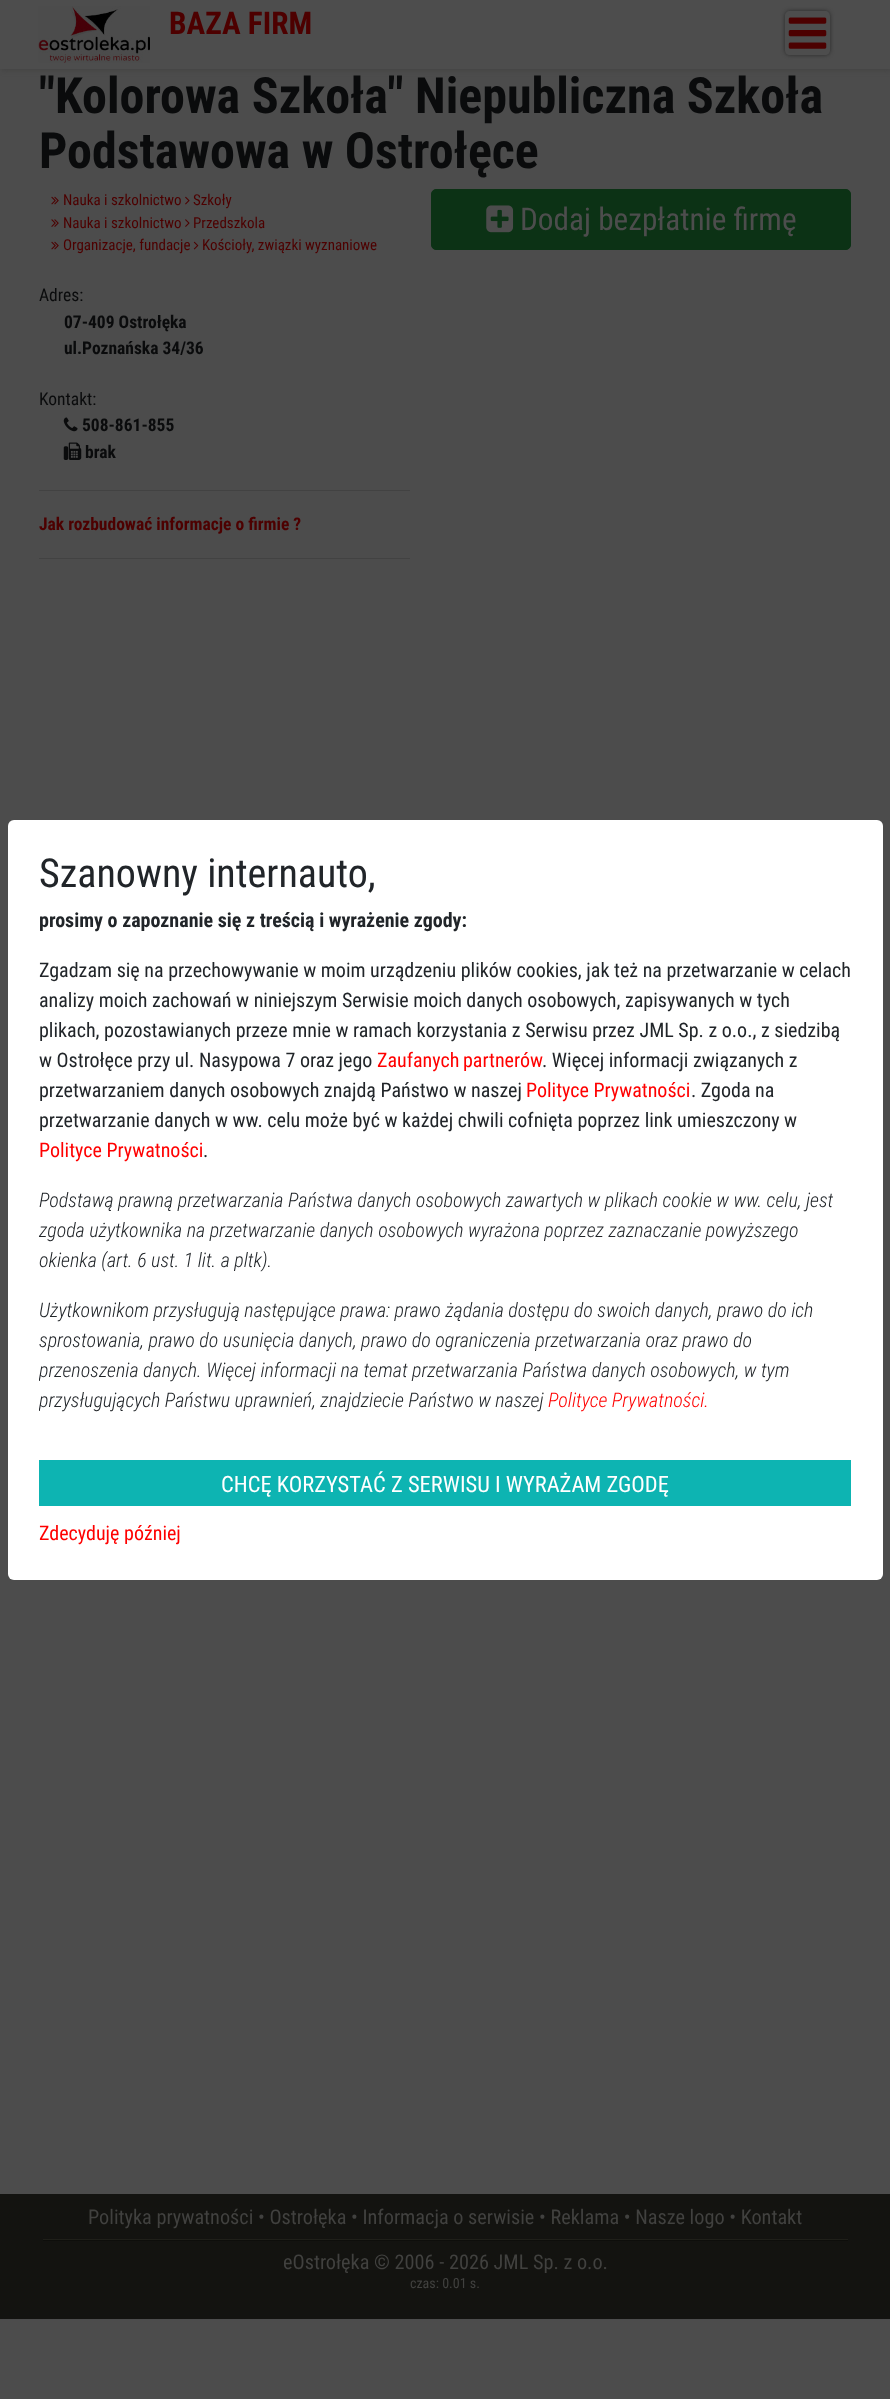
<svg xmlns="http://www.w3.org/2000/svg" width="890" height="2399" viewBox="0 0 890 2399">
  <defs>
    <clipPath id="clip1"><path d="M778 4H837V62H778ZM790 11H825C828 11 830 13 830 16V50C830 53 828 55 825 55H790C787 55 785 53 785 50V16C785 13 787 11 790 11Z" clip-rule="evenodd"/></clipPath>
    <clipPath id="clip2"><path d="M39 905h812v530H39z"/></clipPath>
  </defs>
  <rect width="100%" height="100%" fill="#4c4c4c"/>
  <path d="M1 0h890v69H1z" fill="#3c3c3bcc" filter="blur(3px)"/>
  <path d="M0 0h890v69H0z" fill="#4d4d4d"/>
  <image x="38" y="6" width="112" height="57" href="img/1.png"/>
  <g clip-path="url(#clip1)">
    <rect x="785" y="11" width="45" height="44" rx="5" fill="#292929" filter="blur(2px)"/>
  </g>
  <image x="788" y="17" width="39" height="32" href="img/2.png"/>
  <image x="51" y="196" width="8" height="9" href="img/3.png"/>
  <image x="185" y="196" width="5" height="9" href="img/4.png"/>
  <image x="51" y="219" width="8" height="8" href="img/5.png"/>
  <image x="185" y="219" width="5" height="8" href="img/6.png"/>
  <image x="51" y="241" width="8" height="9" href="img/3.png"/>
  <image x="193" y="241" width="6" height="9" href="img/7.png"/>
  <image x="63" y="417" width="15" height="15" href="img/8.png"/>
  <image x="63" y="442" width="19" height="18" href="img/9.png"/>
  <path d="M39 490h371v1H39z" fill="#424242"/>
  <path d="M39 558h371v1H39z" fill="#424242"/>
  <rect x="431.5" y="189.5" width="419" height="60" rx="4.5" fill="#0c3215" stroke="#0c3215"/>
  <image x="486" y="205" width="28" height="28" href="img/10.png"/>
  <rect x="8" y="820" width="875" height="760" rx="6" fill="#fff"/>
  <path d="M39 1460h812v46H39z" fill="#0db4b2"/>
  <path d="M0 2194h890v125H0z" fill="#131310"/>
  <path d="M43 2239h805v1H43z" fill="#1f1f19"/>
  <path d="M43 2240h805v1H43z" fill="#0e0e0b"/>
  <text x="169" y="34" font-family="Roboto Condensed" font-size="31.25" font-weight="bold" fill="#4d0000">BAZA FIRM</text>
  <g font-family="Roboto Condensed" font-size="50" font-weight="bold" fill="#0a0b0c">
    <text x="39" y="113">"Kolorowa Szkoła" Niepubliczna Szkoła</text>
    <text x="39" y="168">Podstawowa w Ostrołęce</text>
  </g>
  <g font-family="Roboto Condensed" font-size="15" fill="#4d0000">
    <text x="63" y="205">Nauka i szkolnictwo</text>
    <text x="193" y="205">Szkoły</text>
    <text x="63" y="228">Nauka i szkolnictwo</text>
    <text x="193" y="228">Przedszkola</text>
    <text x="63" y="250">Organizacje, fundacje</text>
    <text x="202" y="250">Kościoły, związki wyznaniowe</text>
  </g>
  <text x="39" y="301" font-family="Roboto Condensed" font-size="17.5" fill="#0a0b0c">Adres:</text>
  <g font-family="Roboto Condensed" font-size="17.5" font-weight="bold" fill="#0a0b0c">
    <text x="64" y="328">07-409 Ostrołęka</text>
    <text x="64" y="354">ul.Poznańska 34/36</text>
  </g>
  <text x="39" y="405" font-family="Roboto Condensed" font-size="17.5" fill="#0a0b0c">Kontakt:</text>
  <g font-family="Roboto Condensed" font-size="17.5" font-weight="bold" fill="#0a0b0c">
    <text x="82" y="431">508-861-855</text>
    <text x="85" y="458">brak</text>
  </g>
  <text x="39" y="530" font-family="Roboto Condensed" font-size="17.5" font-weight="bold" fill="#4d0000">Jak rozbudować informacje o firmie ?</text>
  <text x="520" y="230" font-family="Roboto Condensed" font-size="31.25" fill="#4d4d4d">Dodaj bezpłatnie firmę</text>
  <text x="39" y="887" font-family="Roboto Condensed" font-size="40" fill="#212529">Szanowny internauto,</text>
  <text x="39" y="927" font-family="Roboto Condensed" font-size="20" font-weight="bold" fill="#212529">prosimy o zapoznanie się z treścią i wyrażenie zgody:</text>
  <g font-family="Roboto Condensed" font-size="20" fill="#212529">
    <text x="39" y="977">Zgadzam się na przechowywanie w moim urządzeniu plików cookies, jak też na przetwarzanie w celach</text>
    <text x="39" y="1007">analizy moich zachowań w niniejszym Serwisie moich danych osobowych, zapisywanych w tych</text>
    <text x="39" y="1037">plikach, pozostawianych przeze mnie w ramach korzystania z Serwisu przez JML Sp. z o.o., z siedzibą</text>
    <text x="39" y="1067">w Ostrołęce przy ul. Nasypowa 7 oraz jego</text>
  </g>
  <text x="377" y="1067" word-spacing="-1" font-family="Roboto Condensed" font-size="20" fill="#f00">Zaufanych partnerów</text>
  <g font-family="Roboto Condensed" font-size="20" fill="#212529">
    <text x="542" y="1067">. Więcej informacji związanych z</text>
    <text x="39" y="1097">przetwarzaniem danych osobowych znajdą Państwo w naszej</text>
  </g>
  <text x="526" y="1097" font-family="Roboto Condensed" font-size="20" fill="#f00">Polityce Prywatności</text>
  <g font-family="Roboto Condensed" font-size="20" fill="#212529">
    <text x="691" y="1097">. Zgoda na</text>
    <text x="39" y="1127">przetwarzanie danych w ww. celu może być w każdej chwili cofnięta poprzez link umieszczony w</text>
  </g>
  <text x="39" y="1157" font-family="Roboto Condensed" font-size="20" fill="#f00">Polityce Prywatności</text>
  <text x="203" y="1157" font-family="Roboto Condensed" font-size="20" fill="#212529">.</text>
  <g font-family="Roboto Condensed" font-size="20" font-weight="300" font-style="italic" fill="#212529">
    <text x="39" y="1207">Podstawą prawną przetwarzania Państwa danych osobowych zawartych w plikach cookie w ww. celu, jest</text>
    <text x="39" y="1237">zgoda użytkownika na przetwarzanie danych osobowych wyrażona poprzez zaznaczanie powyższego</text>
    <text x="39" y="1267">okienka (art. 6 ust. 1 lit. a pltk).</text>
    <text x="39" y="1317">Użytkownikom przysługują następujące prawa: prawo żądania dostępu do swoich danych, prawo do ich</text>
    <text x="39" y="1347">sprostowania, prawo do usunięcia danych, prawo do ograniczenia przetwarzania oraz prawo do</text>
  </g>
  <g clip-path="url(#clip2)">
    <g font-family="Roboto Condensed" font-size="20" font-weight="300" font-style="italic" fill="#212529">
      <text x="39" y="1377">przenoszenia danych. Więcej informacji na temat przetwarzania Państwa danych osobowych, w tym</text>
      <text x="39" y="1407">przysługujących Państwu uprawnień, znajdziecie Państwo w naszej</text>
    </g>
  </g>
  <text x="548" y="1407" font-family="Roboto Condensed" font-size="20" font-weight="300" font-style="italic" fill="#f00">Polityce Prywatności.</text>
  <text x="221" y="1492" font-family="Roboto Condensed" font-size="22.5" fill="#fff">CHCĘ KORZYSTAĆ Z SERWISU I WYRAŻAM ZGODĘ</text>
  <text x="39" y="1540" font-family="Roboto Condensed" font-size="20" fill="#f00">Zdecyduję później</text>
  <g font-family="Roboto Condensed" font-size="20.25" fill="#41413f">
    <text x="88" y="2224">Polityka prywatności • Ostrołęka • Informacja o serwisie • Reklama • Nasze logo • Kontakt</text>
    <text x="283" y="2269">eOstrołęka © 2006 - 2026 JML Sp. z o.o.</text>
  </g>
  <text x="410" y="2288" font-family="Roboto Condensed" font-size="14" fill="#41413f">czas: 0.01 s.</text>
</svg>
